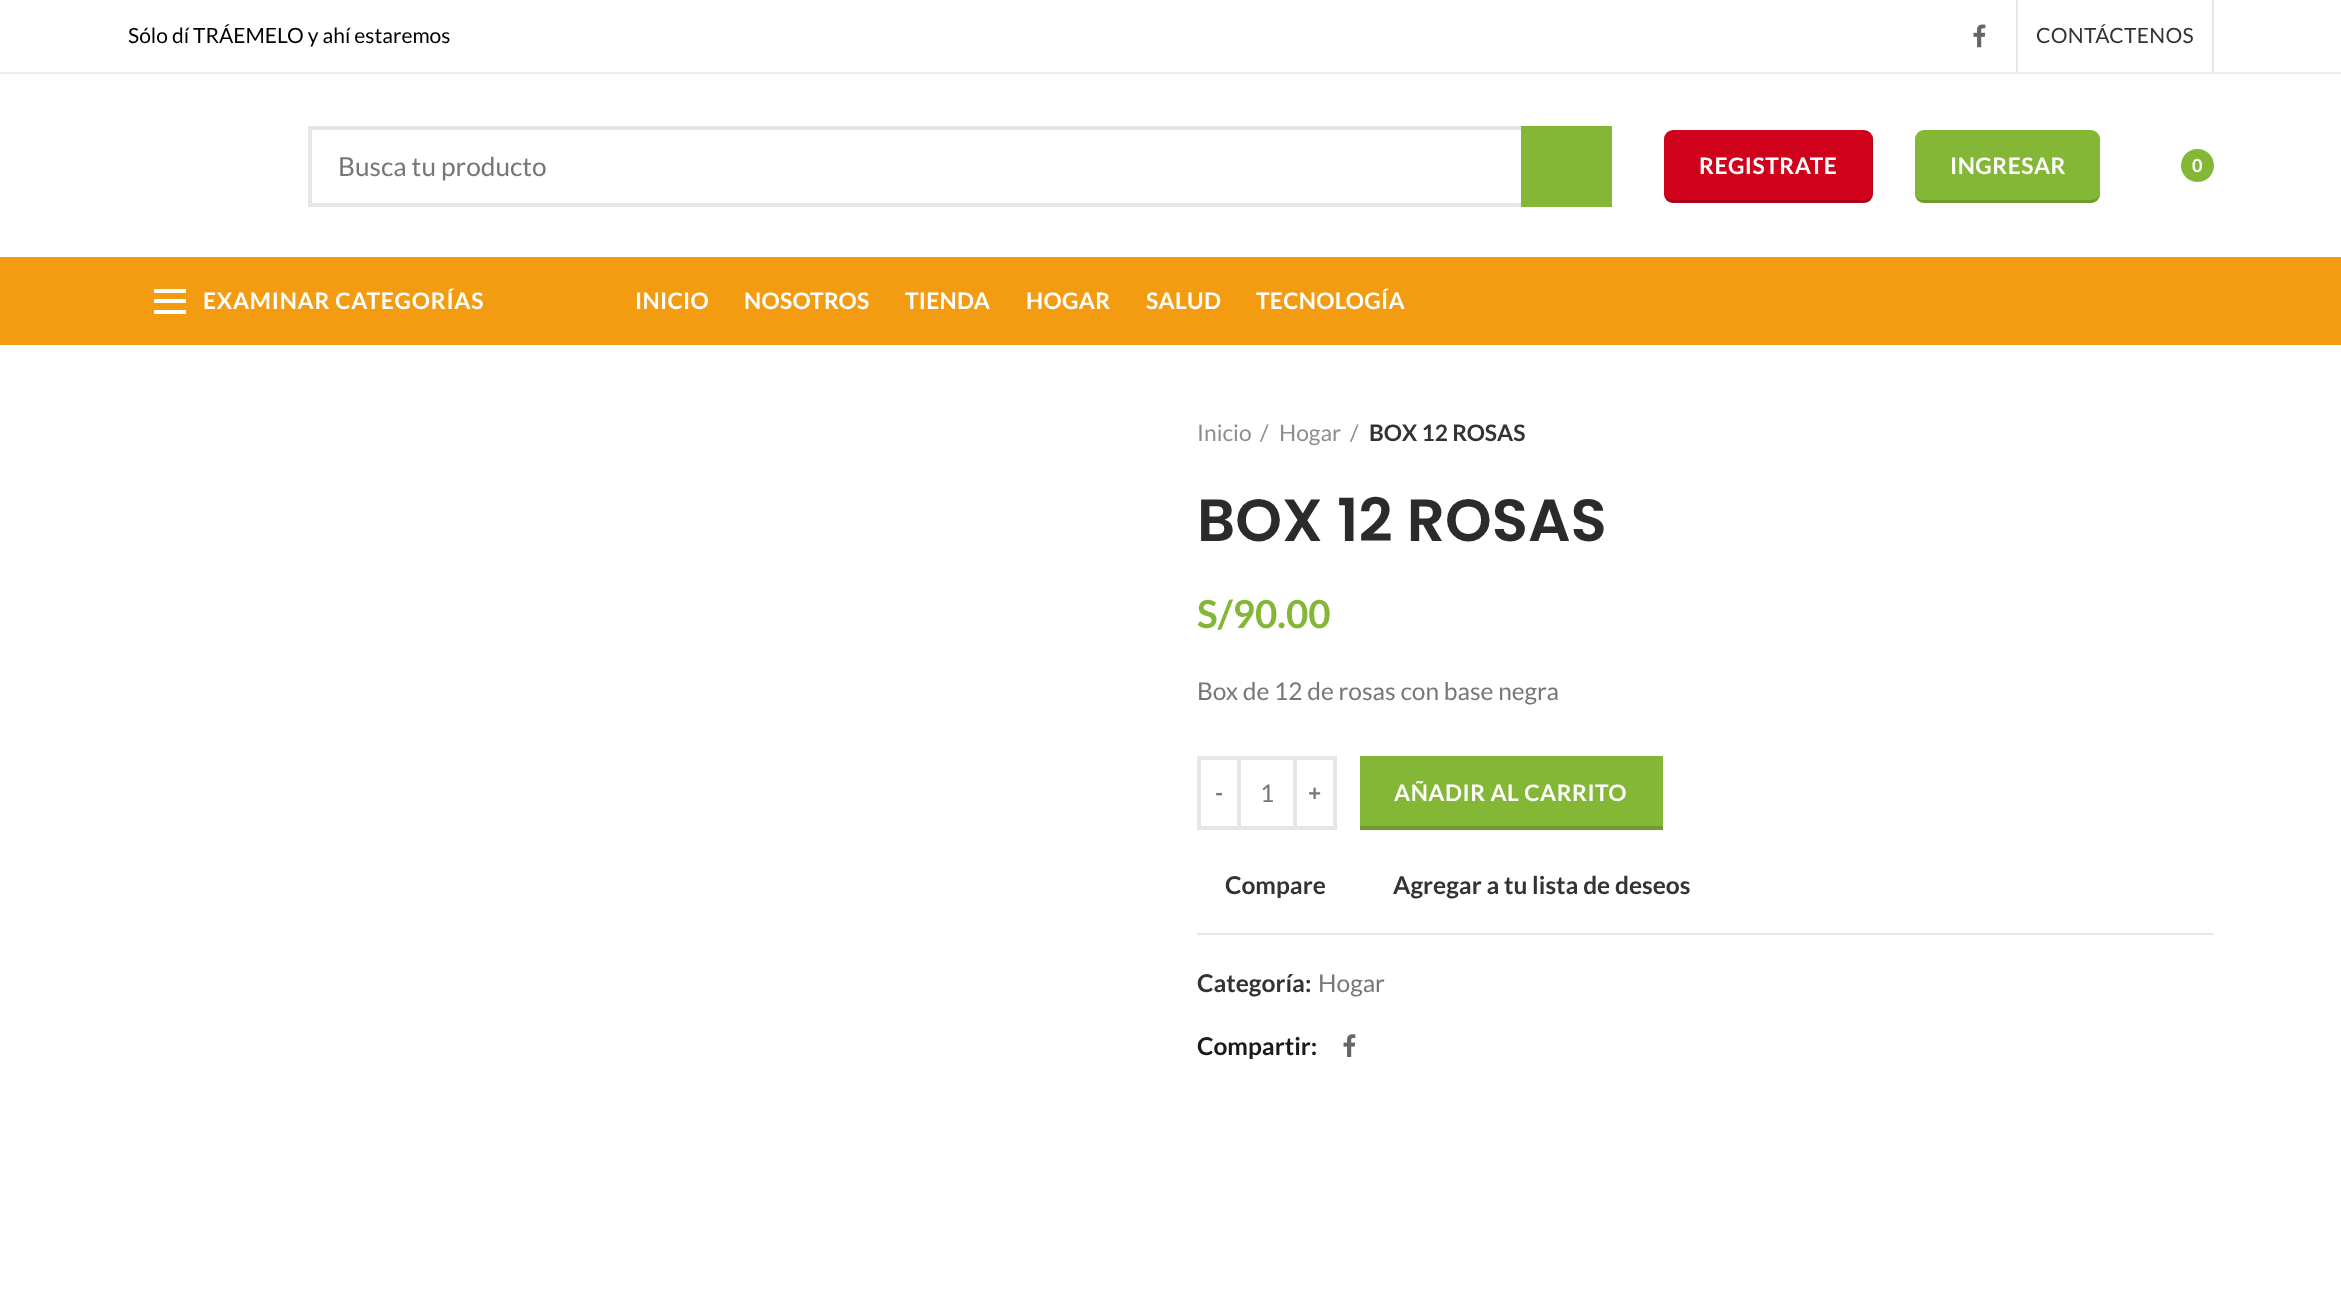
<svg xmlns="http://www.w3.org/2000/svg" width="2341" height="1310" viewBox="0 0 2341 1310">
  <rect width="100%" height="100%" fill="#fff"/>
  <path d="M0 72h2341v2H0z" fill="#ececec"/>
  <image x="1973" y="24" width="13" height="24" href="img/1.png"/>
  <path d="M2016 0h2v72H2016z" fill="#e6e6e6"/>
  <path d="M2212 0h2v72H2212z" fill="#e6e6e6"/>
  <path d="M310 128h1300v77H310z" fill="none" stroke="#e6e6e6" stroke-width="4"/>
  <path d="M1521 126h91v81H1521z" fill="#83b735"/>
  <rect x="1664" y="130" width="209" height="73" rx="9" fill="#d0021b"/>
  <path d="M1664 191V194C1664 199 1668 203 1673 203H1864C1869 203 1873 199 1873 194V139C1873 138 1873 136 1872 135V191C1872 196 1869 200 1864 200H1673C1668 200 1664 196 1664 191Z" fill="#00000026"/>
  <rect x="1915" y="130" width="185" height="73" rx="9" fill="#83b735"/>
  <path d="M1915 195C1916 200 1919 203 1924 203H2091C2096 203 2100 199 2100 194V191C2100 196 2096 200 2091 200H1923C1920 200 1917 198 1915 195Z" fill="#00000026"/>
  <circle cx="2197.5" cy="165.5" r="16.5" fill="#83b735"/>
  <path d="M0 257h2341v88H0z" fill="#f39c12"/>
  <path d="M154 299h32v4H154z" fill="#fff"/>
  <path d="M154 289h32v4H154z" fill="#fff"/>
  <path d="M154 310h32v4H154z" fill="#fff"/>
  <path d="M1199 758h40v70H1199z" fill="none" stroke="#e6e6e6" stroke-width="4"/>
  <path d="M1241 756h52v4H1241z" fill="#e6e6e6"/>
  <path d="M1241 826h52v4H1241z" fill="#e6e6e6"/>
  <path d="M1295 758h40v70H1295z" fill="none" stroke="#e6e6e6" stroke-width="4"/>
  <path d="M1360 756h303v70H1360z" fill="#83b735"/>
  <path d="M1360 826h303v4H1360z" fill="#6f9c2d"/>
  <path d="M1197 933h1017v2H1197z" fill="#e6e6e6"/>
  <image x="1343" y="1034" width="13" height="23" href="img/2.png"/>
  <text x="128" y="43" font-family="Lato" font-size="21" fill="#000">Sólo dí TRÁEMELO y ahí estaremos</text>
  <text x="2036" y="43" font-family="Lato" font-size="21" letter-spacing="0.3" fill="#333">CONTÁCTENOS</text>
  <text x="338" y="176" font-family="Lato" font-size="26.25" fill="#777">Busca tu producto</text>
  <g font-family="Lato" font-size="22.75" font-weight="bold" letter-spacing="0.5" fill="#fff">
    <text x="1699" y="174">REGISTRATE</text>
    <text x="1950" y="174">INGRESAR</text>
  </g>
  <text x="2192" y="172" font-family="Lato" font-size="18" font-weight="bold" fill="#fff">0</text>
  <text x="203" y="309" font-family="Lato" font-size="22.75" font-weight="bold" letter-spacing="0.75" fill="#fff">EXAMINAR CATEGORÍAS</text>
  <g font-family="Lato" font-size="22.75" font-weight="bold" letter-spacing="0.3" fill="#fff">
    <text x="635" y="309">INICIO</text>
    <text x="744" y="309">NOSOTROS</text>
    <text x="905" y="309">TIENDA</text>
    <text x="1026" y="309">HOGAR</text>
    <text x="1146" y="309">SALUD</text>
    <text x="1256" y="309">TECNOLOGÍA</text>
  </g>
  <g font-family="Lato" font-size="22.75" fill="#8e8e8e">
    <text x="1197" y="441">Inicio</text>
    <text x="1260" y="441">/</text>
    <text x="1279" y="441">Hogar</text>
    <text x="1350" y="441">/</text>
  </g>
  <text x="1369" y="441" font-family="Lato" font-size="22.75" font-weight="bold" fill="#333">BOX 12 ROSAS</text>
  <text x="1197" y="541" font-family="Poppins" font-size="59.5" font-weight="600" fill="#2d2a2a">BOX 12 ROSAS</text>
  <text x="1197" y="628" font-family="Lato" font-size="38.5" font-weight="bold" fill="#83b735">S/90.00</text>
  <text x="1197" y="700" font-family="Lato" font-size="24.5" fill="#777">Box de 12 de rosas con base negra</text>
  <text x="1215" y="801" font-family="Lato" font-size="22.75" font-weight="bold" letter-spacing="0.5" fill="#777">-</text>
  <text x="1260" y="802" font-family="Lato" font-size="24.5" fill="#777">1</text>
  <text x="1308" y="801" font-family="Lato" font-size="22.75" font-weight="bold" letter-spacing="0.5" fill="#777">+</text>
  <text x="1394" y="801" font-family="Lato" font-size="22.75" font-weight="bold" letter-spacing="0.5" fill="#fff">AÑADIR AL CARRITO</text>
  <g font-family="Lato" font-size="24.5" font-weight="bold" fill="#333">
    <text x="1225" y="894">Compare</text>
    <text x="1393" y="894">Agregar a tu lista de deseos</text>
    <text x="1197" y="992">Categoría:</text>
  </g>
  <text x="1318" y="992" font-family="Lato" font-size="24.5" fill="#777">Hogar</text>
  <text x="1197" y="1055" font-family="Lato" font-size="24.5" font-weight="bold" fill="#1b1919">Compartir:</text>
</svg>
